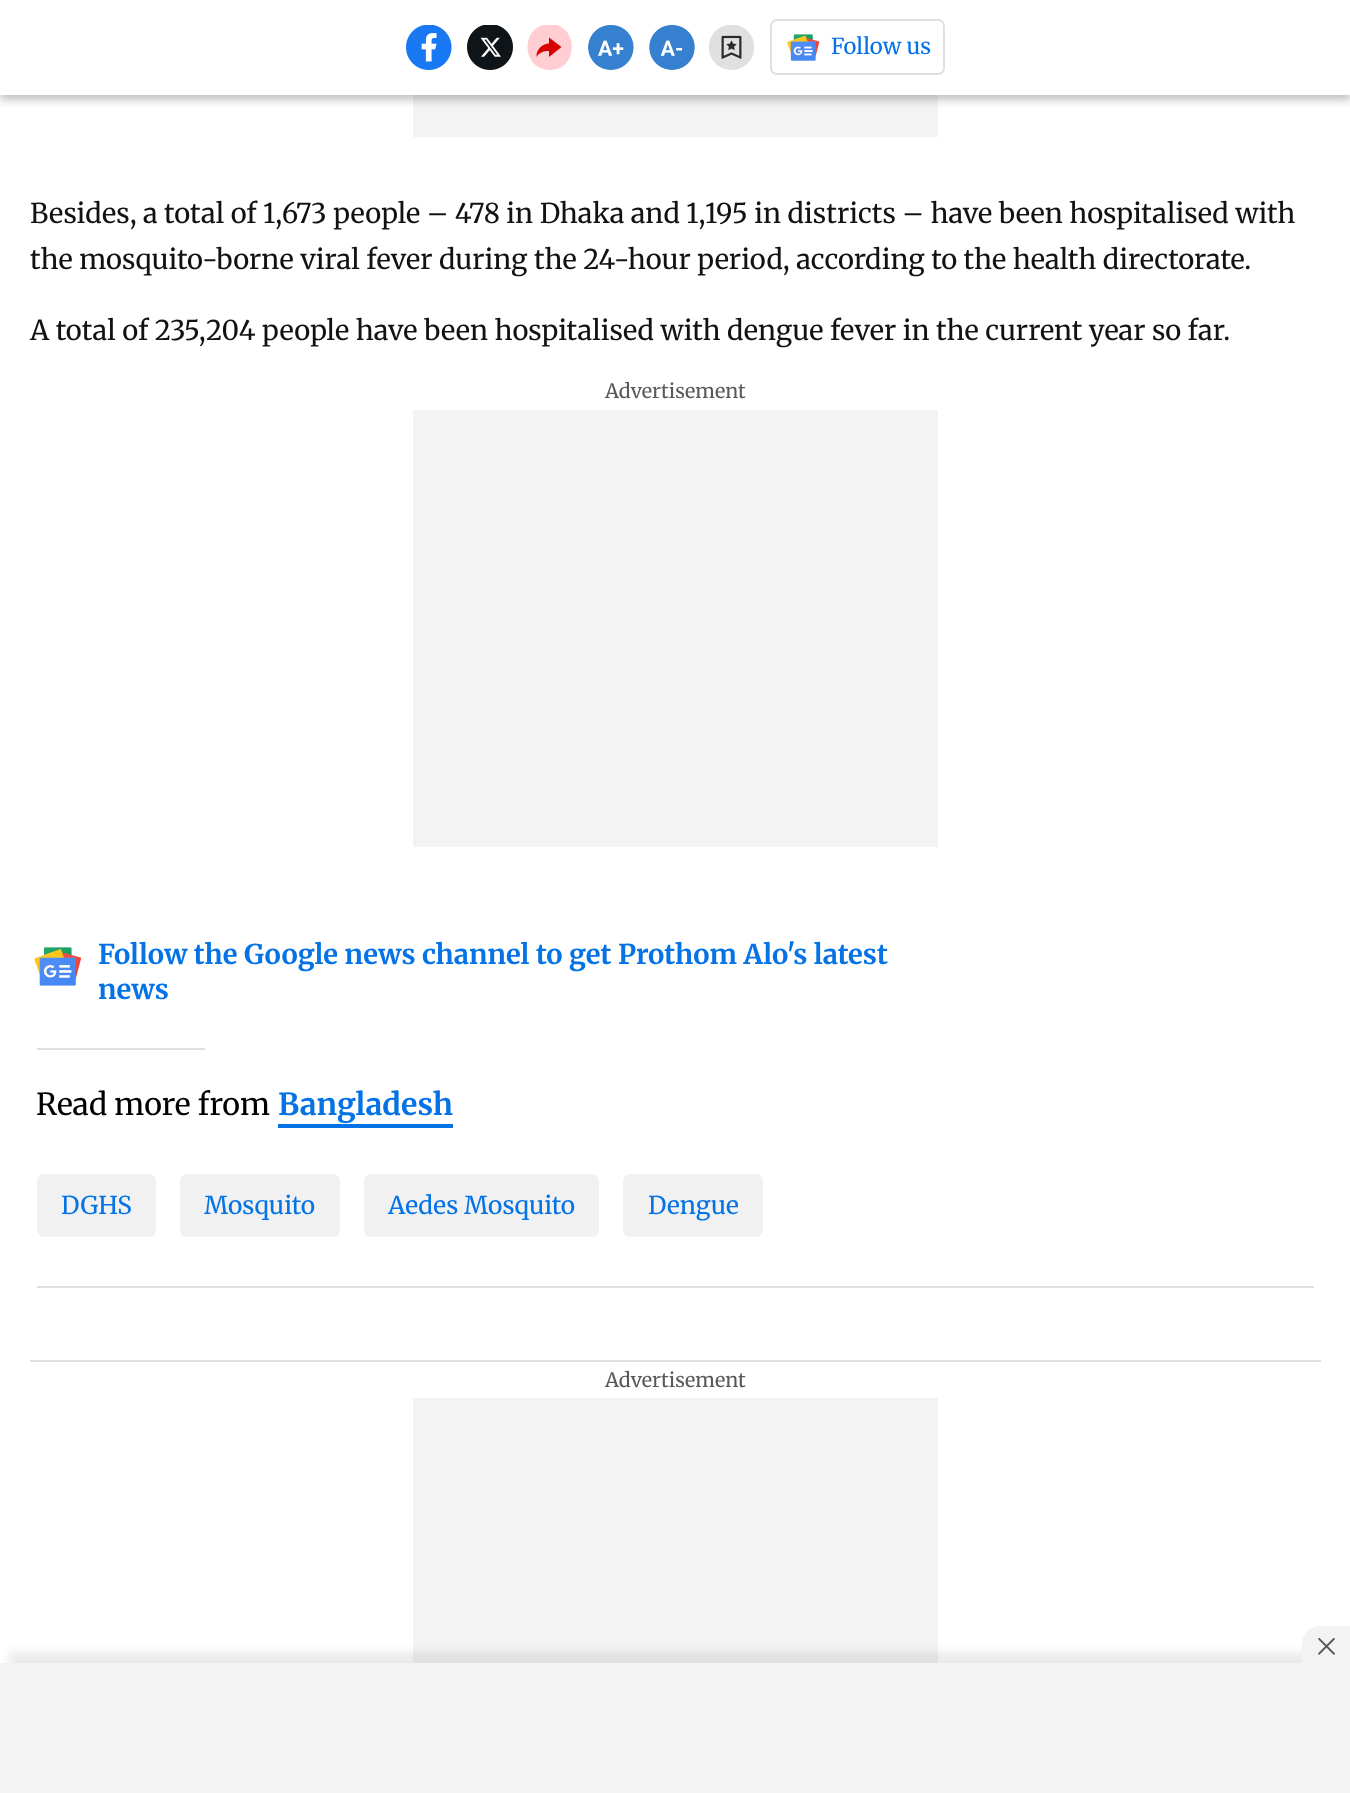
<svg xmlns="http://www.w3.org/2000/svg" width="1350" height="1793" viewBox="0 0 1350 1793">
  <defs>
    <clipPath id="clip1"><path d="M527 25h45v45H527z"/></clipPath>
  </defs>
  <rect width="100%" height="100%" fill="#fff"/>
  <path d="M413 95h525v42H413z" fill="#f3f3f3"/>
  <path d="M0 5h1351v95H0z" fill="#0000003d" filter="blur(4.5px)"/>
  <path d="M0 0h1350v95H0z" fill="#fff"/>
  <image x="406" y="25" width="46" height="45" href="img/1.png"/>
  <image x="467" y="25" width="46" height="45" href="img/2.png"/>
  <g clip-path="url(#clip1)">
    <path d="M550 24C579 24 579 70 550 70C520 70 520 24 550 24Z" fill="#ffcdd2"/>
  </g>
  <path d="M549 51C544 51 539.5 52 536.5 57C536 50 542 43.5 549 43.5V37.5L561.5 47L549 57Z" fill="#d60000"/>
  <rect x="588" y="25" width="46" height="45" rx="22.5" fill="#eee"/>
  <image x="588" y="25" width="46" height="45" href="img/3.png"/>
  <rect x="649" y="25" width="46" height="45" rx="22.5" fill="#eee"/>
  <image x="649" y="25" width="46" height="45" href="img/4.png"/>
  <image x="709" y="25" width="45" height="45" href="img/5.png"/>
  <rect x="771" y="20" width="173" height="54" rx="6" fill="none" stroke="#e0e0e0" stroke-width="2"/>
  <image x="787" y="34" width="33" height="27" href="img/6.png"/>
  <path d="M413 410h525v437H413z" fill="#f3f3f3"/>
  <image x="34" y="947" width="48" height="39" href="img/7.png"/>
  <path d="M37 1286h1277v2H37z" fill="#e0e0e0"/>
  <path d="M37 1048h168v2H37z" fill="#e0e0e0"/>
  <path d="M278 1124h175v4H278z" fill="#0573e6"/>
  <rect x="37" y="1174" width="119" height="63" rx="7" fill="#f1f1f1"/>
  <rect x="180" y="1174" width="160" height="63" rx="7" fill="#f1f1f1"/>
  <rect x="364" y="1174" width="235" height="63" rx="7" fill="#f1f1f1"/>
  <rect x="623" y="1174" width="140" height="63" rx="7" fill="#f1f1f1"/>
  <path d="M30 1360h1291v2H30z" fill="#e0e0e0"/>
  <path d="M413 1398h525v265H413z" fill="#f3f3f3"/>
  <path d="M9 1652h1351v131H9z" fill="#00000014" filter="blur(4.5px)"/>
  <path d="M0 1663h1350v130H0z" fill="#f3f3f3"/>
  <path d="M1320 1626H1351V1675H1302V1644C1302 1634 1310 1626 1320 1626Z" fill="#f3f3f3"/>
  <image x="1318" y="1638" width="17" height="17" href="img/8.png"/>
  <text x="831" y="54" font-family="Merriweather" font-size="22" fill="#0573e6">Follow us</text>
  <g font-family="Merriweather" font-size="27.25" fill="#121212">
    <text x="30" y="223">Besides, a total of 1,673 people – 478 in Dhaka and 1,195 in districts – have been hospitalised with</text>
    <text x="30" y="269">the mosquito-borne viral fever during the 24-hour period, according to the health directorate.</text>
    <text x="30" y="340">A total of 235,204 people have been hospitalised with dengue fever in the current year so far.</text>
  </g>
  <text x="605" y="398" font-family="Merriweather" font-size="19.75" fill="#595959">Advertisement</text>
  <g font-family="Merriweather" font-size="27.25" font-weight="bold" fill="#0573e6">
    <text x="98" y="964">Follow the Google news channel to get Prothom Alo's latest</text>
    <text x="98" y="999">news</text>
  </g>
  <text x="36" y="1115" font-family="Merriweather" font-size="30.25" fill="#000">Read more from</text>
  <text x="278" y="1115" font-family="Merriweather" font-size="30.25" font-weight="bold" fill="#0573e6">Bangladesh</text>
  <g font-family="Merriweather" font-size="24.5" fill="#0573e6">
    <text x="61" y="1214">DGHS</text>
    <text x="204" y="1214">Mosquito</text>
    <text x="388" y="1214">Aedes Mosquito</text>
    <text x="648" y="1214">Dengue</text>
  </g>
  <text x="605" y="1387" font-family="Merriweather" font-size="19.75" fill="#595959">Advertisement</text>
</svg>
